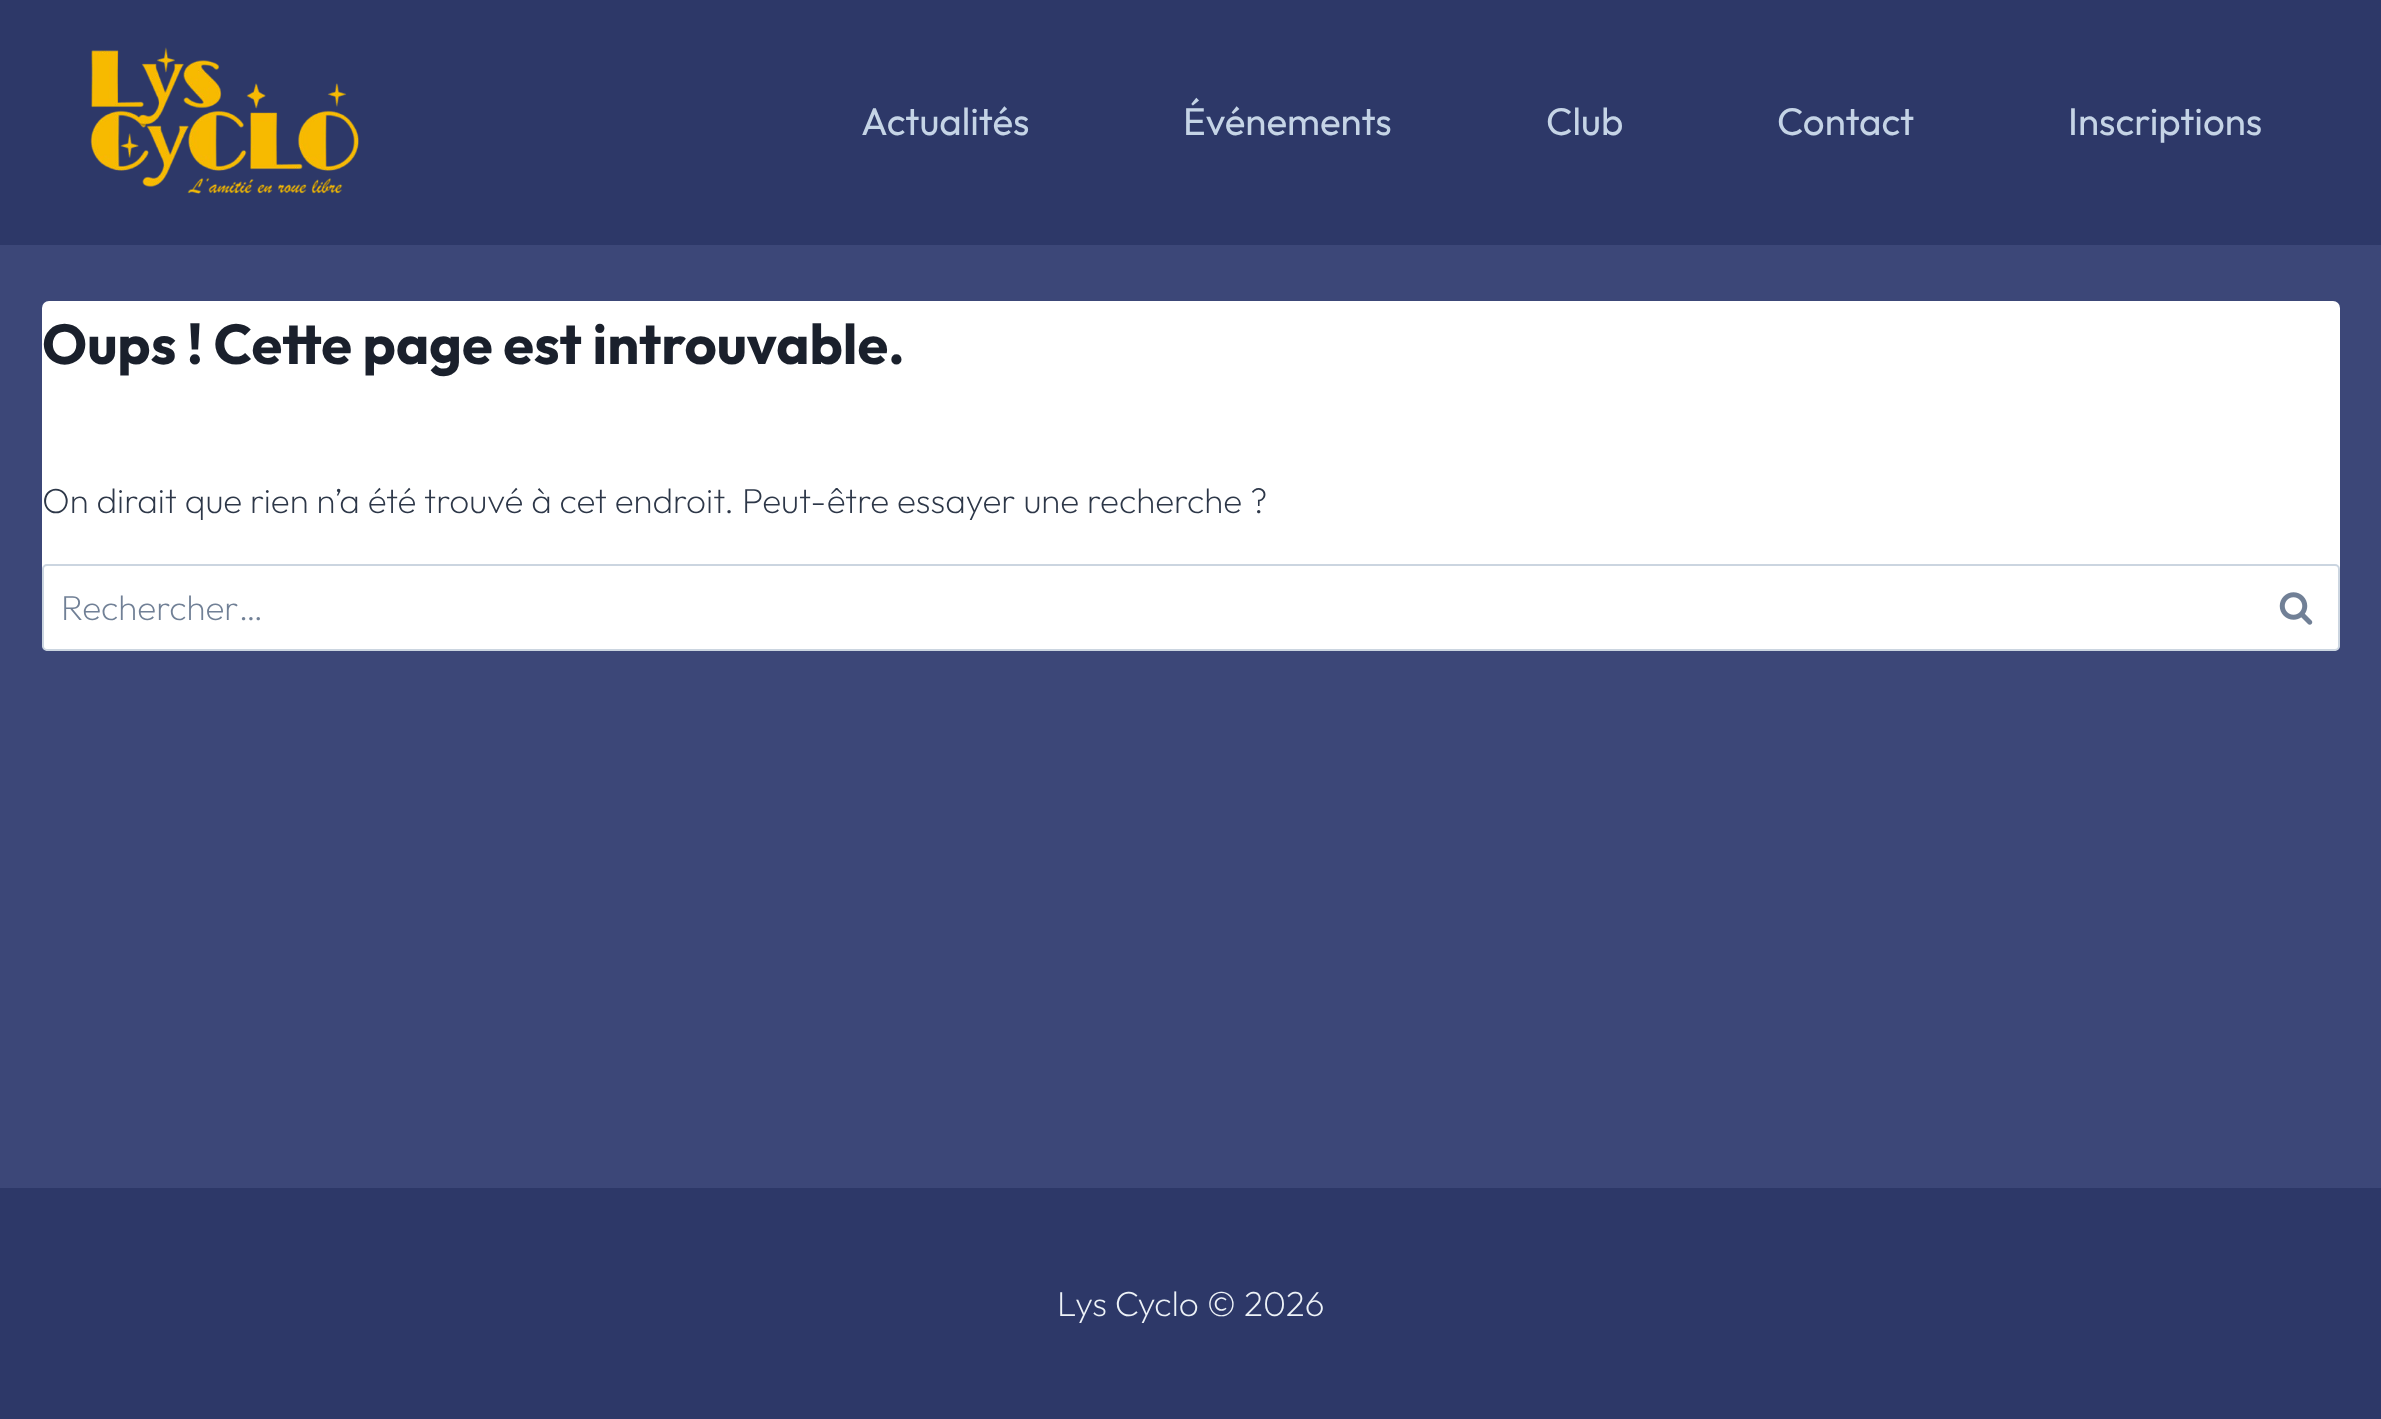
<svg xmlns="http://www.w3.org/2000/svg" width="2381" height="1419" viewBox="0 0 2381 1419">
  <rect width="100%" height="100%" fill="#3c4778"/>
  <path d="M0 0h2381v245H0z" fill="#2d3868"/>
  <image x="90" y="47" width="269" height="147" href="img/1.png"/>
  <rect x="42" y="301" width="2298" height="350" rx="7" fill="#fff"/>
  <rect x="43" y="565" width="2296" height="85" rx="4" fill="#fff" stroke="#cbd5e0" stroke-width="2"/>
  <image x="2279" y="592" width="34" height="33" href="img/2.png"/>
  <path d="M0 1188h2381v231H0z" fill="#2d3868"/>
  <g font-family="Outfit" font-size="38.5" fill="#c5d4e6">
    <text x="861" y="135">Actualités</text>
    <text x="1183" y="135">Événements</text>
    <text x="1546" y="135">Club</text>
    <text x="1777" y="135">Contact</text>
    <text x="2068" y="135">Inscriptions</text>
  </g>
  <text x="42" y="364" font-family="Outfit" font-size="56" font-weight="bold" fill="#1a202c">Oups ! Cette page est introuvable.</text>
  <text x="42" y="513" font-family="Outfit" font-size="35" font-weight="200" fill="#2d3748">On dirait que rien n’a été trouvé à cet endroit. Peut-être essayer une recherche ?</text>
  <text x="61" y="620" font-family="Outfit" font-size="35" font-weight="200" fill="#718096">Rechercher…</text>
  <text x="1057" y="1316" font-family="Outfit" font-size="35" font-weight="200" fill="#edf2f7">Lys Cyclo © 2026</text>
</svg>
